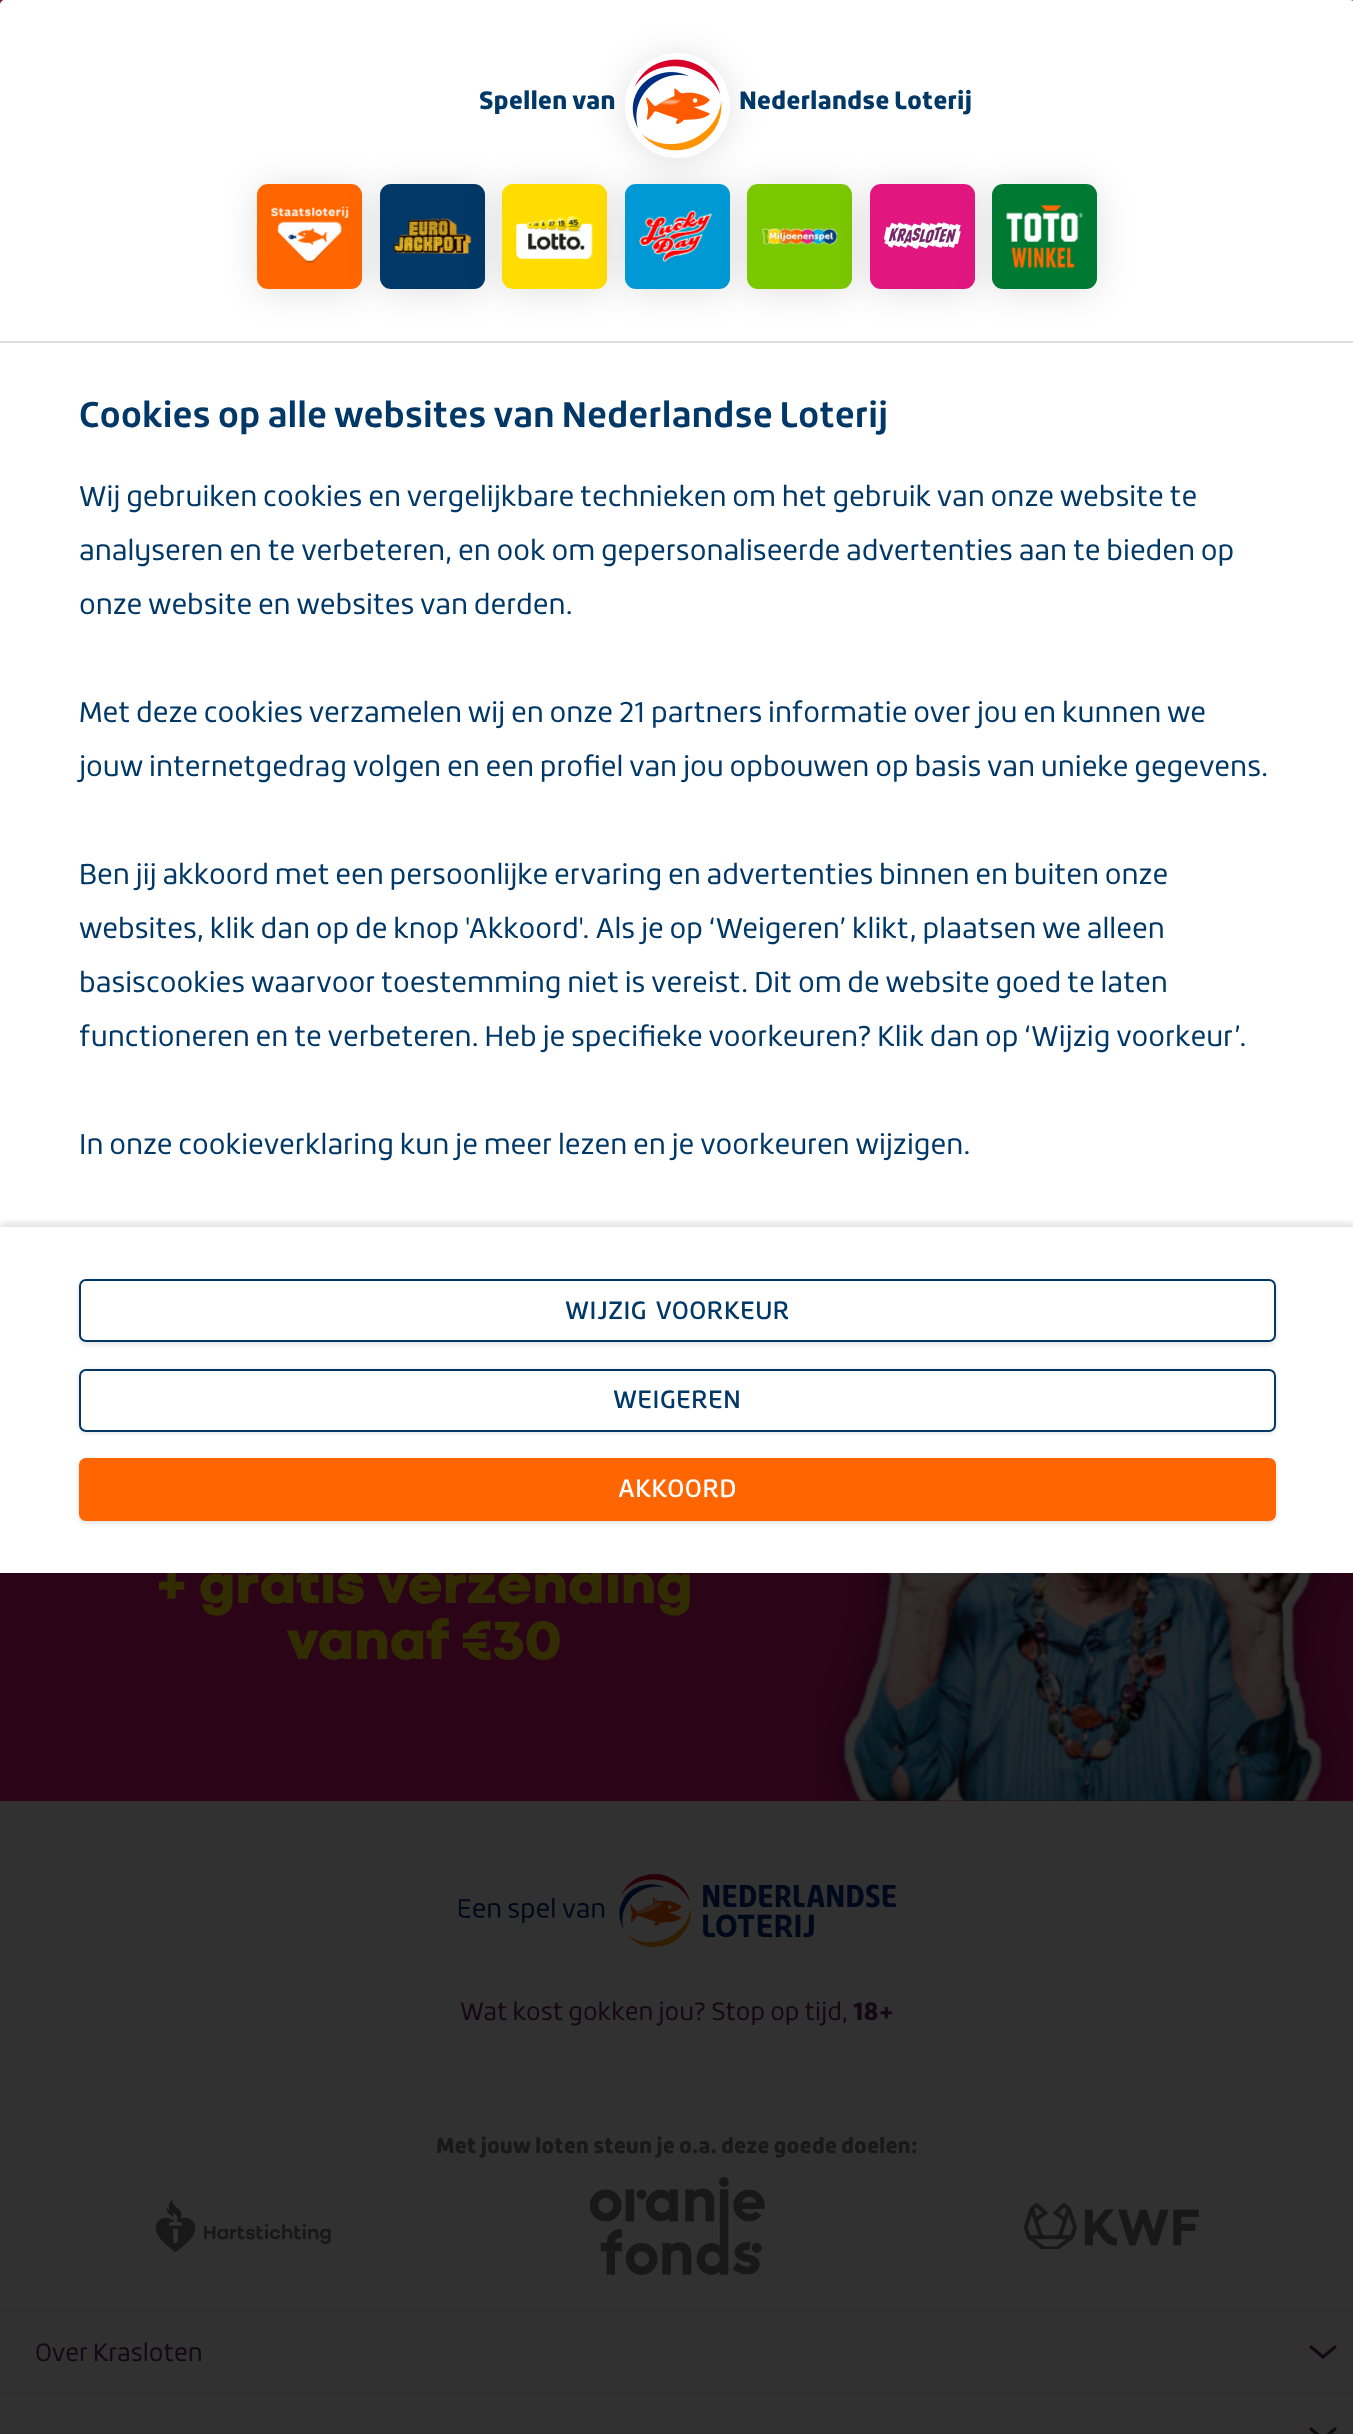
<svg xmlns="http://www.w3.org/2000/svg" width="1353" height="2434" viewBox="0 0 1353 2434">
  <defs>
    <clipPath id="clip1"><path d="M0 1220h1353v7H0z"/></clipPath>
    <clipPath id="clip2"><path d="M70 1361H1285V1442H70ZM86 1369H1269C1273 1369 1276 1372 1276 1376V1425C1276 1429 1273 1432 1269 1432H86C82 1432 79 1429 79 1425V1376C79 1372 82 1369 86 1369Z" clip-rule="evenodd"/></clipPath>
    <clipPath id="clip3"><path d="M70 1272H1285V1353H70ZM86 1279H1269C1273 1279 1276 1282 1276 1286V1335C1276 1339 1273 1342 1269 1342H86C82 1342 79 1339 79 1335V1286C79 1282 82 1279 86 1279Z" clip-rule="evenodd"/></clipPath>
    <clipPath id="clip4"><path d="M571 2H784V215H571ZM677.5 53C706.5 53 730 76.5 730 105.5C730 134.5 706.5 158 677.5 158C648.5 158 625 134.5 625 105.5C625 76.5 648.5 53 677.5 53Z" clip-rule="evenodd"/></clipPath>
  </defs>
  <rect width="100%" height="100%" fill="#313131"/>
  <path d="M0 0h1353v5H0z" fill="#870e4c"/>
  <path d="M0 1573h1353v228H0z" fill="#2b0418"/>
  <image x="816" y="1573" width="531" height="228" href="img/9.png"/>
  <image x="459" y="1874" width="437" height="73" href="img/10.png"/>
  <path d="M0 2310h1353v2H0z" fill="#2e2e2e"/>
  <image x="156" y="2200" width="175" height="52" href="img/11.png"/>
  <image x="590" y="2177" width="175" height="98" href="img/12.png"/>
  <image x="1024" y="2203" width="175" height="46" href="img/13.png"/>
  <path d="M0 2392h1353v2H0z" fill="#2e2e2e"/>
  <path d="M1311 2347L1323 2357L1335 2347" fill="none" stroke="#150714" stroke-width="3.2" stroke-linecap="round"/>
  <path d="M1311 2429L1323 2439L1335 2429" fill="none" stroke="#150714" stroke-width="3.2" stroke-linecap="round"/>
  <text x="156" y="1603" font-family="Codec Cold" font-size="56" font-weight="900" letter-spacing="-1.4" fill="#312c02">+ gratis verzending</text>
  <path d="M5 0H1350C1353 0 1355 2 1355 5V1573H0V5C0 2 2 0 5 0Z" fill="#fff"/>
  <rect x="79" y="1460" width="1197" height="63" rx="7" fill="#0000001f" filter="blur(2.5px)"/>
  <g clip-path="url(#clip1)">
    <path d="M0 1223h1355v347H0z" fill="#0000001f" filter="blur(3.5px)"/>
  </g>
  <rect x="79" y="1458" width="1197" height="63" rx="7" fill="#ff6602"/>
  <text x="618" y="1497" font-family="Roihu" font-size="24.5" font-weight="500" letter-spacing="0.5" fill="#fff">AKKOORD</text>
  <g clip-path="url(#clip2)">
    <rect x="79" y="1370" width="1197" height="63" rx="7" fill="#0000001f" filter="blur(2.5px)"/>
  </g>
  <rect x="80" y="1370" width="1195" height="61" rx="6" fill="none" stroke="#013867" stroke-width="2"/>
  <text x="613" y="1408" font-family="Roihu" font-size="24.5" font-weight="500" letter-spacing="0.5" fill="#013867">WEIGEREN</text>
  <g clip-path="url(#clip3)">
    <rect x="79" y="1281" width="1197" height="63" rx="7" fill="#0000001f" filter="blur(2.5px)"/>
  </g>
  <rect x="80" y="1280" width="1195" height="61" rx="6" fill="none" stroke="#013867" stroke-width="2"/>
  <text x="565" y="1319" word-spacing="3" font-family="Roihu" font-size="24.5" font-weight="500" letter-spacing="0.5" fill="#013867">WIJZIG VOORKEUR</text>
  <g font-family="Roihu" font-size="28" fill="#013867">
    <text x="79" y="1154">In onze cookieverklaring kun je meer lezen en je voorkeuren wijzigen.</text>
    <text x="79" y="1046">functioneren en te verbeteren. Heb je specifieke voorkeuren? Klik dan op ‘Wijzig voorkeur’.</text>
    <text x="79" y="992">basiscookies waarvoor toestemming niet is vereist. Dit om de website goed te laten</text>
    <text x="79" y="938">websites, klik dan op de knop 'Akkoord'. Als je op ‘Weigeren’ klikt, plaatsen we alleen</text>
    <text x="79" y="884">Ben jij akkoord met een persoonlijke ervaring en advertenties binnen en buiten onze</text>
    <text x="79" y="776">jouw internetgedrag volgen en een profiel van jou opbouwen op basis van unieke gegevens.</text>
    <text x="79" y="722">Met deze cookies verzamelen wij en onze 21 partners informatie over jou en kunnen we</text>
    <text x="79" y="614">onze website en websites van derden.</text>
    <text x="79" y="560">analyseren en te verbeteren, en ook om gepersonaliseerde advertenties aan te bieden op</text>
    <text x="79" y="506">Wij gebruiken cookies en vergelijkbare technieken om het gebruik van onze website te</text>
  </g>
  <text x="79" y="427" font-family="Roihu" font-size="35" font-weight="bold" fill="#013867">Cookies op alle websites van Nederlandse Loterij</text>
  <rect x="257" y="187" width="105" height="105" rx="11" fill="#0000001f" filter="blur(17.5px)"/>
  <rect x="257" y="184" width="105" height="105" rx="11" fill="#f60"/>
  <image x="271" y="206" width="78" height="57" href="img/2.png"/>
  <rect x="380" y="187" width="105" height="105" rx="11" fill="#0000001f" filter="blur(17.5px)"/>
  <rect x="380" y="184" width="105" height="105" rx="11" fill="#013867"/>
  <image x="393" y="218" width="79" height="36" href="img/3.png"/>
  <g clip-path="url(#clip4)">
    <rect x="625" y="56" width="105" height="105" rx="52.5" fill="#0000001f" filter="blur(17.5px)"/>
  </g>
  <image x="632" y="59" width="90" height="92" href="img/1.png"/>
  <rect x="502" y="187" width="105" height="105" rx="11" fill="#0000001f" filter="blur(17.5px)"/>
  <rect x="502" y="184" width="105" height="105" rx="11" fill="#fd0"/>
  <image x="516" y="215" width="77" height="44" href="img/4.png"/>
  <rect x="625" y="187" width="105" height="105" rx="11" fill="#0000001f" filter="blur(17.5px)"/>
  <rect x="625" y="184" width="105" height="105" rx="11" fill="#0099d6"/>
  <image x="639" y="210" width="76" height="53" href="img/5.png"/>
  <rect x="747" y="187" width="105" height="105" rx="11" fill="#0000001f" filter="blur(17.5px)"/>
  <rect x="747" y="184" width="105" height="105" rx="11" fill="#7bc700"/>
  <image x="762" y="228" width="76" height="17" href="img/6.png"/>
  <rect x="870" y="187" width="105" height="105" rx="11" fill="#0000001f" filter="blur(17.5px)"/>
  <rect x="870" y="184" width="105" height="105" rx="11" fill="#e1177f"/>
  <image x="884" y="222" width="77" height="27" href="img/7.png"/>
  <rect x="992" y="187" width="105" height="105" rx="11" fill="#0000001f" filter="blur(17.5px)"/>
  <path d="M0 341h1353v2H0z" fill="#ddd"/>
  <rect x="992" y="184" width="105" height="105" rx="11" fill="#007a33"/>
  <image x="1006" y="205" width="77" height="63" href="img/8.png"/>
  <g font-family="Roihu" font-size="24.5" font-weight="900" fill="#013867">
    <text x="739" y="109">Nederlandse Loterij</text>
    <text x="479" y="109">Spellen van</text>
  </g>
  <text x="286" y="1659" font-family="Codec Cold" font-size="56" font-weight="900" letter-spacing="-1.4" fill="#312c02">vanaf €30</text>
  <text x="460" y="2020" font-family="Roihu" font-size="24.5" fill="#150714">Wat kost gokken jou? Stop op tijd,</text>
  <text x="853" y="2020" font-family="Roihu" font-size="24.5" font-weight="900" fill="#150714">18+</text>
  <text x="436" y="2153" font-family="Roihu" font-size="21" font-weight="900" fill="#181818">Met jouw loten steun je o.a. deze goede doelen:</text>
  <text x="35" y="2361" font-family="Roihu" font-size="24.5" fill="#150714">Over Krasloten</text>
</svg>
